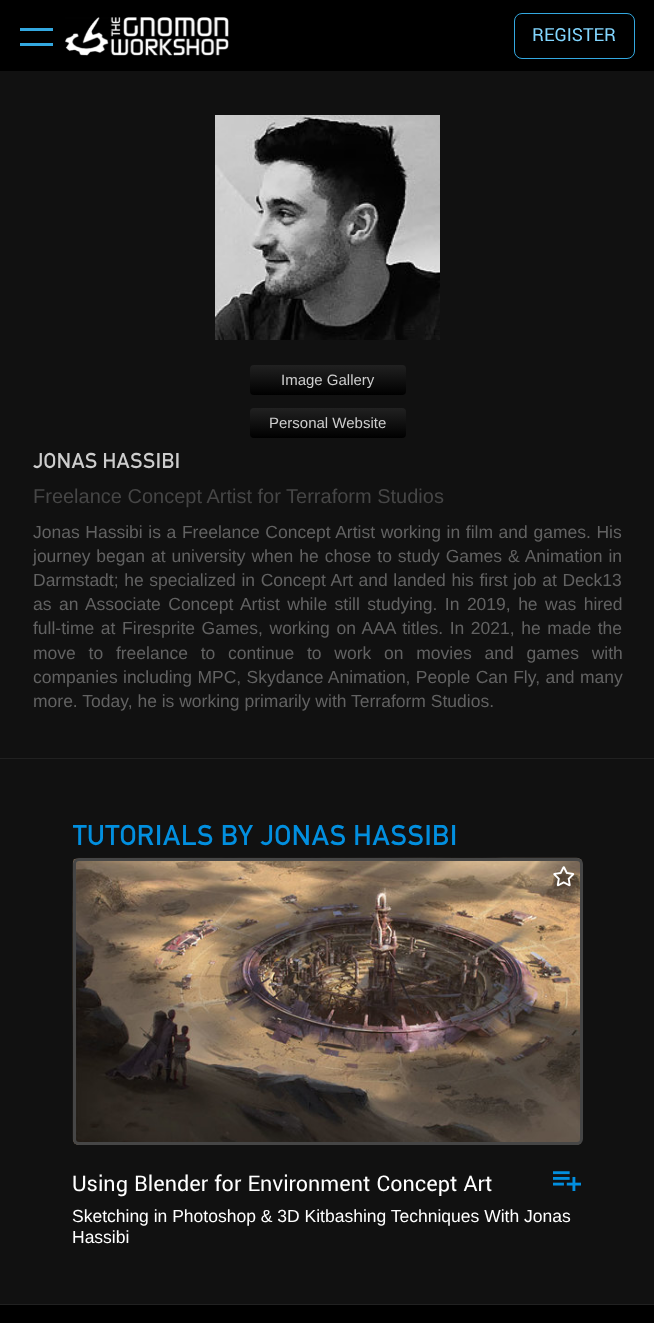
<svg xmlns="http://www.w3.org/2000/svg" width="654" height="1323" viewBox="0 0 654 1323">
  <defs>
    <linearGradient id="g1" gradientUnits="userSpaceOnUse" x1="328" y1="365" x2="328" y2="395"><stop offset="0" stop-color="#212121"/><stop offset="1" stop-color="#000"/></linearGradient>
    <linearGradient id="g2" gradientUnits="userSpaceOnUse" x1="328" y1="408" x2="328" y2="438"><stop offset="0" stop-color="#212121"/><stop offset="1" stop-color="#000"/></linearGradient>
    <clipPath id="clip1"><path d="M73 815h510v433H73z"/></clipPath>
  </defs>
  <rect width="100%" height="100%" fill="#000"/>
  <path d="M20 28h33v3H20z" fill="#33a8e0"/>
  <path d="M20 43h33v3H20z" fill="#33a8e0"/>
  <image x="65" y="17" width="164" height="39" href="img/1.png"/>
  <rect x="514.5" y="13.5" width="120" height="45" rx="7.5" fill="none" stroke="#33a8e0"/>
  <path d="M0 71h654v687H0z" fill="#111"/>
  <image x="215" y="115" width="225" height="225" href="img/2.png"/>
  <rect x="250" y="365" width="156" height="30" rx="4" fill="url(#g1)"/>
  <rect x="250" y="408" width="156" height="30" rx="4" fill="url(#g2)"/>
  <path d="M0 759h654v545H0z" fill="#111"/>
  <path d="M0 758h654v1H0z" fill="#212121"/>
  <path d="M0 1304h654v1H0z" fill="#212121"/>
  <image x="72" y="857" width="511" height="288" href="img/3.png"/>
  <rect x="74.5" y="859.5" width="507" height="284" rx="4.5" fill="none" stroke="#464646" stroke-width="3"/>
  <image x="553" y="866" width="22" height="21" href="img/4.png"/>
  <image x="553" y="1171" width="28" height="20" href="img/5.png"/>
  <text x="532" y="41" font-family="Yantramanav" font-size="20" fill="#82d6ff">REGISTER</text>
  <g font-family="Liberation Sans" font-size="15" fill="#cdcdcd">
    <text x="281" y="385">Image Gallery</text>
    <text x="269" y="428">Personal Website</text>
  </g>
  <text x="33" y="468" word-spacing="-6" font-family="'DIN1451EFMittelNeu'" font-size="22.5" fill="#cdcdcd">JONAS HASSIBI</text>
  <text x="33" y="503" font-family="Liberation Sans" font-size="20" fill="#464646">Freelance Concept Artist for Terraform Studios</text>
  <g font-family="Liberation Sans" font-size="17.5" fill="#626262">
    <text x="33" y="538" word-spacing="0.75">Jonas Hassibi is a Freelance Concept Artist working in film and games. His</text>
    <text x="33" y="562" word-spacing="1.1">journey began at university when he chose to study Games &amp; Animation in</text>
    <text x="33" y="586" word-spacing="0.75">Darmstadt; he specialized in Concept Art and landed his first job at Deck13</text>
    <text x="33" y="610" word-spacing="2.6">as an Associate Concept Artist while still studying. In 2019, he was hired</text>
    <text x="33" y="634" word-spacing="1.75">full-time at Firesprite Games, working on AAA titles. In 2021, he made the</text>
    <text x="33" y="659" word-spacing="7.9">move to freelance to continue to work on movies and games with</text>
    <text x="33" y="683" word-spacing="0.5">companies including MPC, Skydance Animation, People Can Fly, and many</text>
    <text x="33" y="707">more. Today, he is working primarily with Terraform Studios.</text>
  </g>
  <g clip-path="url(#clip1)">
    <text x="72" y="845" word-spacing="-7.5" font-family="'DIN1451EFMittelNeu'" font-size="30" fill="#028fdf">TUTORIALS BY JONAS HASSIBI</text>
  </g>
  <text x="72" y="1191" font-family="Yantramanav" font-size="24" fill="#fff">Using Blender for Environment Concept Art</text>
  <g font-family="Liberation Sans" font-size="17.5" fill="#fff">
    <text x="72" y="1222">Sketching in Photoshop &amp; 3D Kitbashing Techniques With Jonas</text>
    <text x="72" y="1243">Hassibi</text>
  </g>
</svg>
